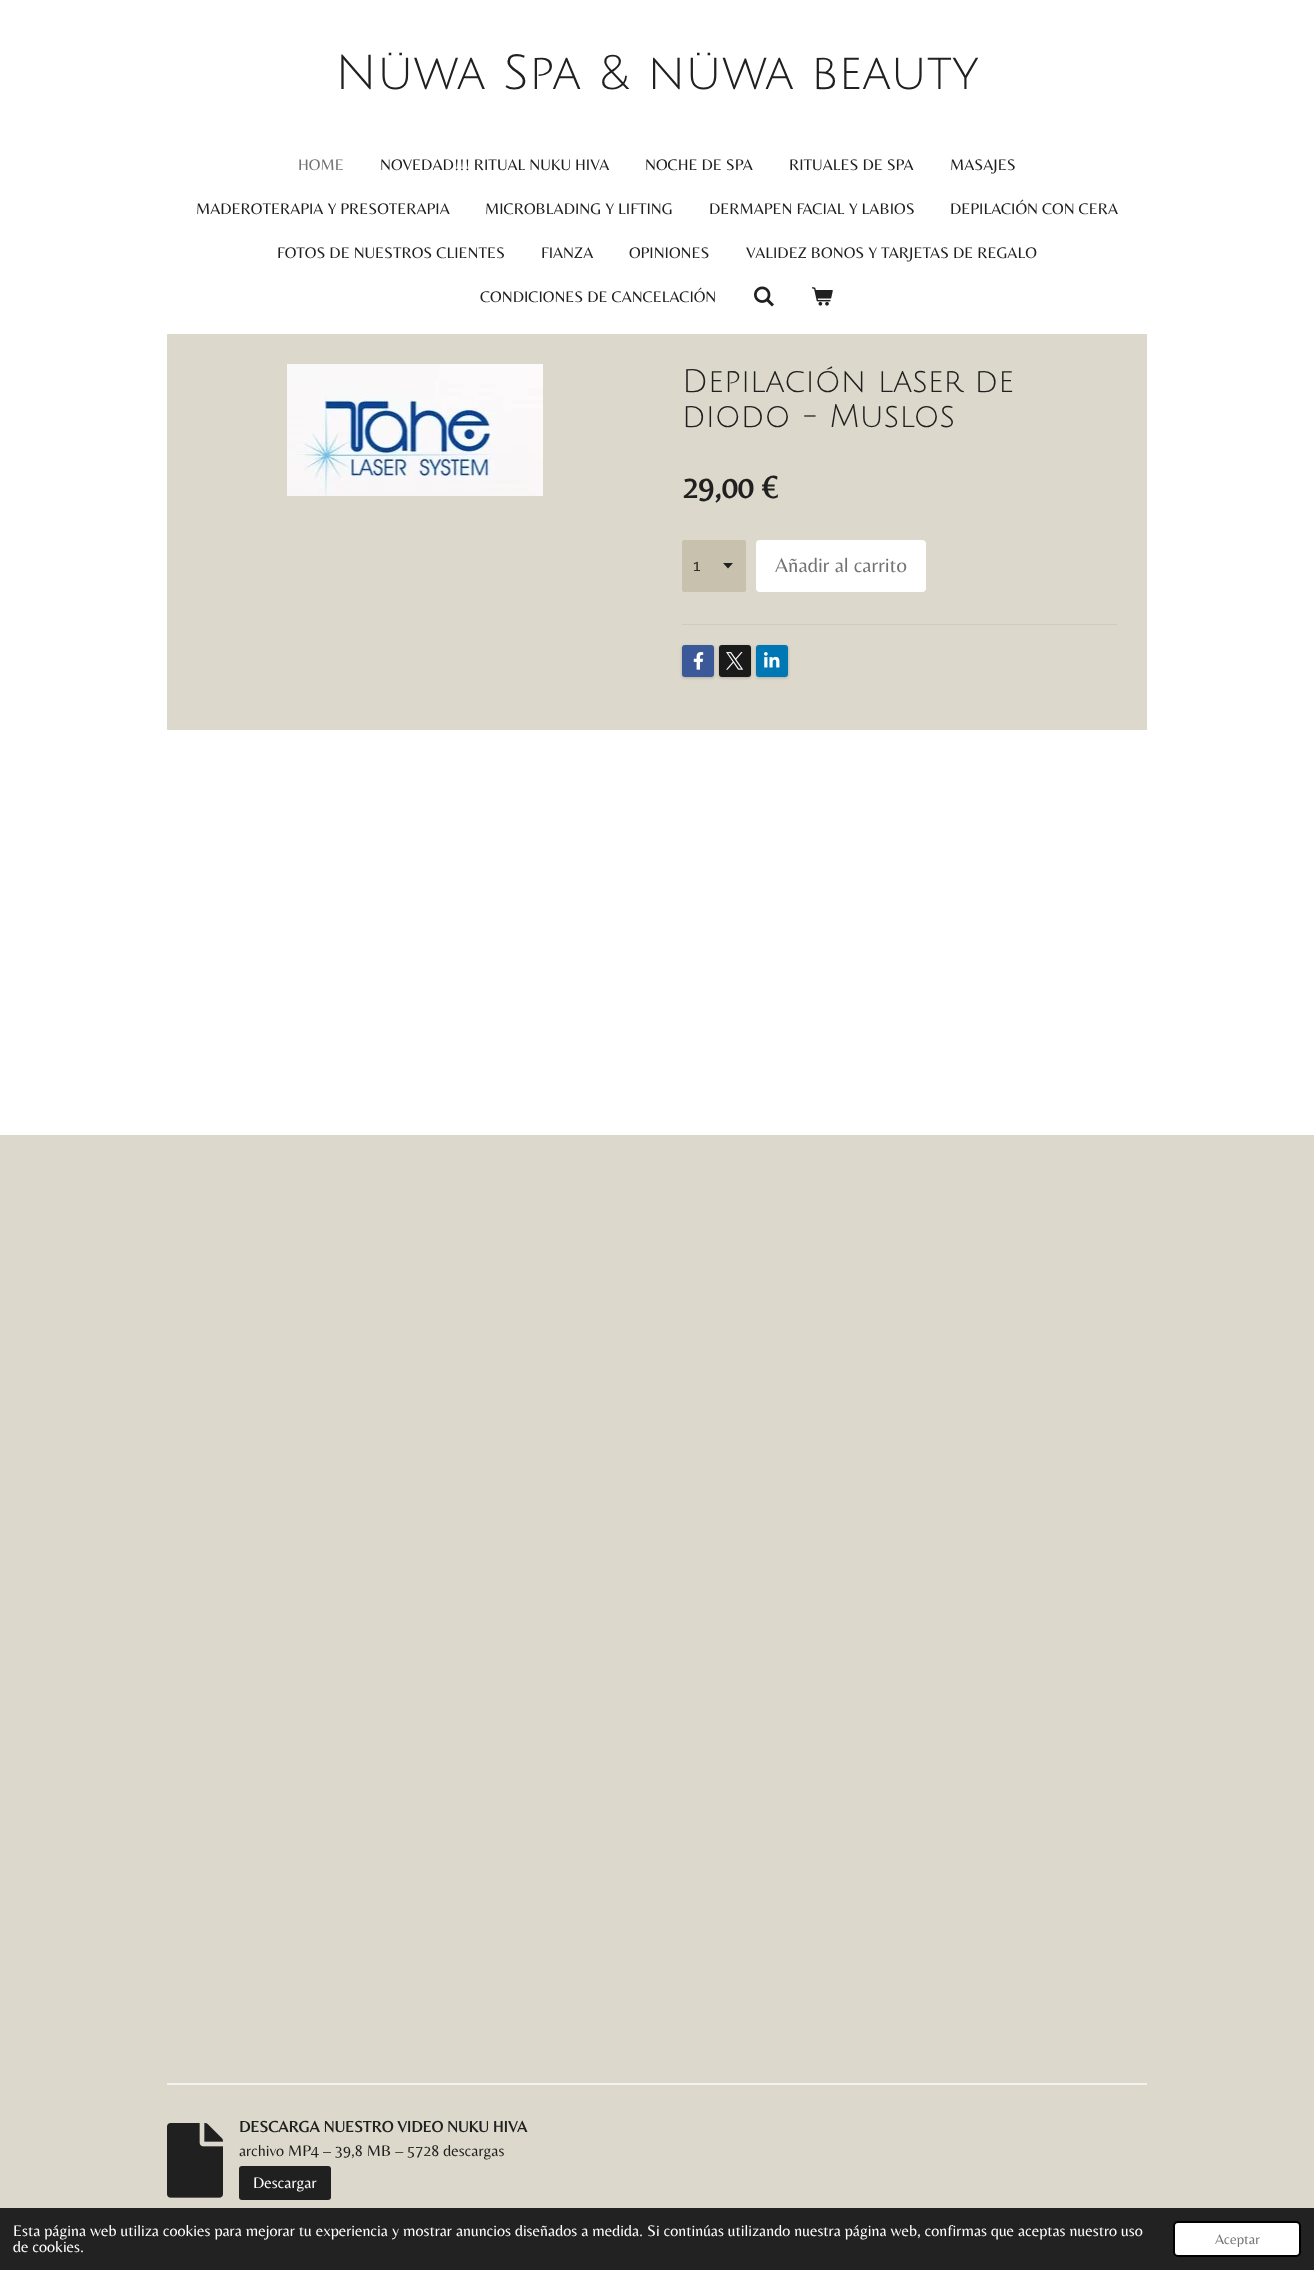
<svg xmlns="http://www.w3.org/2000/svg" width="1314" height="2270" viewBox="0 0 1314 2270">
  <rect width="100%" height="100%" fill="#dcd8cb"/>
  <path d="M0 0h1314v1135H0z" fill="#fff"/>
  <image x="754" y="286" width="20" height="21" href="img/1.png"/>
  <image x="811" y="287" width="22" height="19" href="img/2.png"/>
  <path d="M167 334h980v396H167z" fill="#dcd8cb"/>
  <image x="287" y="364" width="256" height="132" href="img/3.png"/>
  <rect x="682" y="540" width="64" height="52" rx="2" fill="#c7c1ad"/>
  <path d="M728 568.5L723 563H733Z" fill="#202020"/>
  <rect x="756" y="540" width="170" height="52" rx="4" fill="#fff"/>
  <path d="M682 624h435v1H682z" fill="#cfcbbf"/>
  <rect x="682" y="646" width="32" height="32" rx="3" fill="#00000033" filter="blur(1.5px)"/>
  <rect x="682" y="645" width="32" height="32" rx="3" fill="#3b5998"/>
  <image x="693" y="652" width="11" height="18" href="img/4.png"/>
  <rect x="719" y="646" width="32" height="32" rx="3" fill="#00000033" filter="blur(1.5px)"/>
  <rect x="719" y="645" width="32" height="32" rx="3" fill="#1a1a1a"/>
  <image x="726" y="652" width="18" height="18" href="img/5.png"/>
  <rect x="756" y="646" width="32" height="32" rx="3" fill="#00000033" filter="blur(1.5px)"/>
  <rect x="756" y="645" width="32" height="32" rx="3" fill="#0077b5"/>
  <image x="764" y="652" width="16" height="16" href="img/6.png"/>
  <path d="M167 2083h980v2H167z" fill="#f2f2f2"/>
  <image x="167" y="2123" width="56" height="75" href="img/7.png"/>
  <rect x="239" y="2166" width="92" height="34" rx="3" fill="#202020"/>
  <path d="M0 2208h1314v62H0z" fill="#222"/>
  <rect x="1174" y="2222" width="126" height="34" rx="4" fill="#fff" stroke="#000" stroke-width="2"/>
  <text x="335" y="89" font-family="Julius Sans One" font-size="48" fill="#202020">Nüwa Spa &amp; nüwa beauty</text>
  <text x="298" y="170" font-family="Belleza" font-size="16" fill="#737373">HOME</text>
  <g font-family="Belleza" font-size="16" fill="#202020">
    <text x="380" y="170">NOVEDAD!!! RITUAL NUKU HIVA</text>
    <text x="645" y="170">NOCHE DE SPA</text>
    <text x="789" y="170">RITUALES DE SPA</text>
    <text x="950" y="170">MASAJES</text>
    <text x="196" y="214">MADEROTERAPIA Y PRESOTERAPIA</text>
    <text x="485" y="214">MICROBLADING Y LIFTING</text>
    <text x="709" y="214">DERMAPEN FACIAL Y LABIOS</text>
    <text x="950" y="214">DEPILACIÓN CON CERA</text>
    <text x="277" y="258">FOTOS DE NUESTROS CLIENTES</text>
    <text x="541" y="258">FIANZA</text>
    <text x="629" y="258">OPINIONES</text>
    <text x="746" y="258">VALIDEZ BONOS Y TARJETAS DE REGALO</text>
    <text x="480" y="302">CONDICIONES DE CANCELACIÓN</text>
  </g>
  <g font-family="Julius Sans One" font-size="32" fill="#202020">
    <text x="682" y="392">Depilación laser de</text>
    <text x="682" y="427">diodo - Muslos</text>
  </g>
  <text x="682" y="498" font-family="Belleza" font-size="32" font-weight="bold" fill="#202020">29,00 €</text>
  <text x="693" y="571" font-family="Belleza" font-size="16" fill="#202020">1</text>
  <text x="775" y="572" font-family="Belleza" font-size="20.75" fill="#737373">Añadir al carrito</text>
  <text x="239" y="2132" font-family="Belleza" font-size="16" font-weight="bold" fill="#202020">DESCARGA NUESTRO VIDEO NUKU HIVA</text>
  <text x="239" y="2156" font-family="Belleza" font-size="16" fill="#202020">archivo MP4 – 39,8 MB – 5728 descargas</text>
  <g font-family="Belleza" font-size="16" fill="#fff">
    <text x="253" y="2188">Descargar</text>
    <text x="13" y="2236">Esta página web utiliza cookies para mejorar tu experiencia y mostrar anuncios diseñados a medida. Si continúas utilizando nuestra página web, confirmas que aceptas nuestro uso</text>
    <text x="13" y="2252">de cookies.</text>
  </g>
  <text x="1215" y="2244" font-family="Belleza" font-size="14.5" fill="#737373">Aceptar</text>
</svg>
